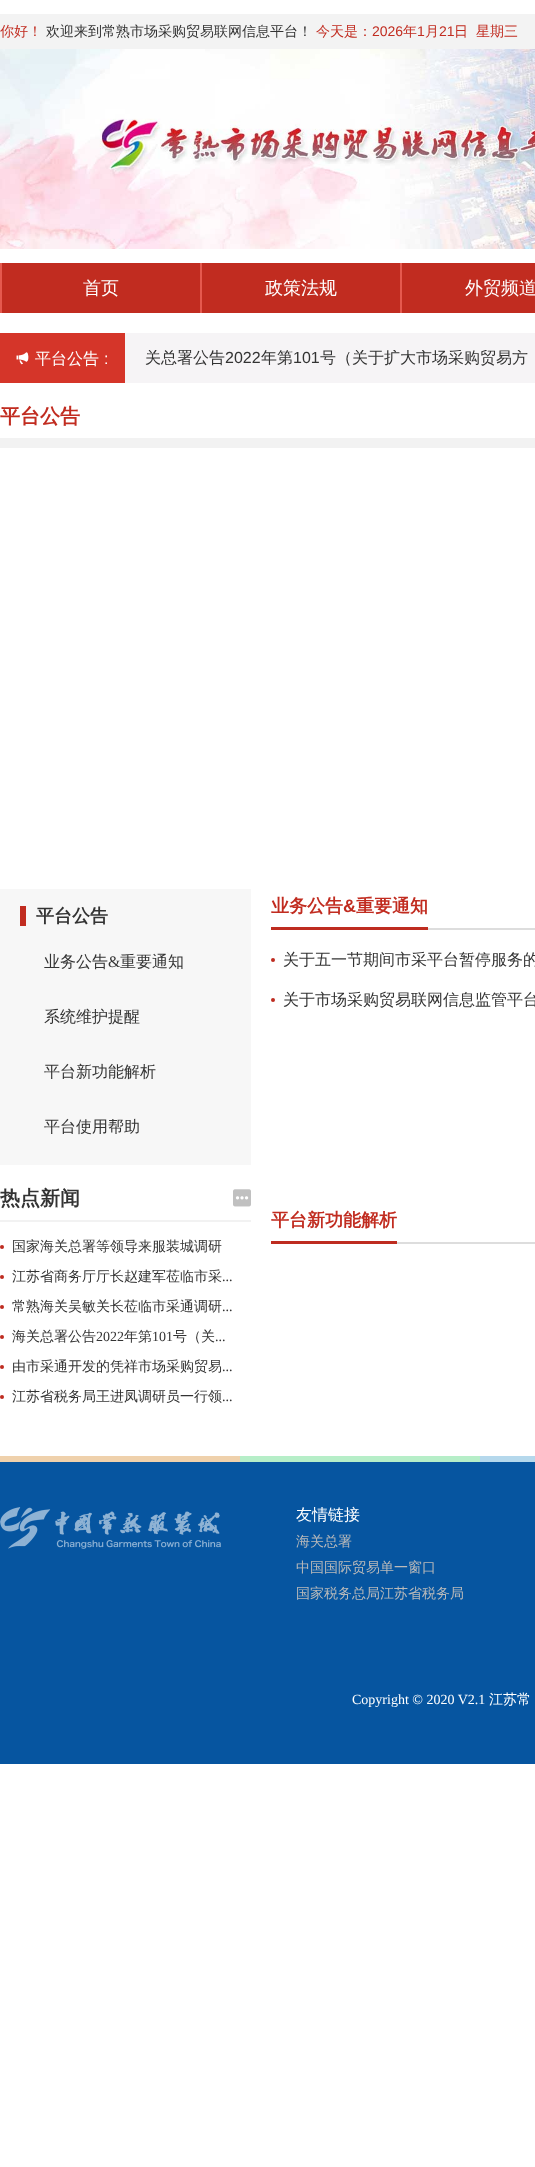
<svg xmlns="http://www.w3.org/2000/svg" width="535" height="2167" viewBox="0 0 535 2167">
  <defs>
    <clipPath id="clip1"><path d="M141 350h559v17H141z"/></clipPath>
  </defs>
  <rect width="100%" height="100%" fill="#fff"/>
  <path d="M0 14h535v35H0z" fill="#f3f3f3"/>
  <image x="0" y="49" width="535" height="200" href="img/1.png"/>
  <path d="M2 263h533v50H2z" fill="#c12c20"/>
  <path d="M0 263h2v50H0z" fill="#e5594e"/>
  <path d="M200 263h2v50H200z" fill="#e5594e"/>
  <path d="M400 263h2v50H400z" fill="#e5594e"/>
  <path d="M125 333h410v50H125z" fill="#f6f4f6"/>
  <path d="M0 333h125v50H0z" fill="#d53529"/>
  <image x="16" y="352" width="13" height="13" href="img/2.png"/>
  <path d="M0 438h535v10H0z" fill="#f2f2f2"/>
  <path d="M0 889h251v276H0z" fill="#f7f7f7"/>
  <path d="M20 906h6v20H20z" fill="#c12c20"/>
  <path d="M0 1220h251v2H0z" fill="#f2f2f2"/>
  <image x="233" y="1189" width="18" height="18" href="img/3.png"/>
  <circle cx="2" cy="1247" r="2" fill="#be2c20"/>
  <circle cx="2" cy="1277" r="2" fill="#be2c20"/>
  <circle cx="2" cy="1307" r="2" fill="#be2c20"/>
  <circle cx="2" cy="1337" r="2" fill="#be2c20"/>
  <circle cx="2" cy="1367" r="2" fill="#be2c20"/>
  <circle cx="2" cy="1397" r="2" fill="#be2c20"/>
  <path d="M428 928h107v2H428z" fill="#ddd"/>
  <path d="M271 927h157v3H271z" fill="#be2c20"/>
  <circle cx="273" cy="960" r="2" fill="#be2c20"/>
  <circle cx="273" cy="1000" r="2" fill="#be2c20"/>
  <path d="M397 1242h138v2H397z" fill="#ddd"/>
  <path d="M271 1241h126v3H271z" fill="#be2c20"/>
  <path d="M0 1456h240v6H0z" fill="#efd1ac"/>
  <path d="M240 1456h240v6H240z" fill="#b6eec8"/>
  <path d="M480 1456h55v6H480z" fill="#b5d8ec"/>
  <path d="M0 1462h535v302H0z" fill="#0655a0"/>
  <image x="0" y="1507" width="221" height="42" href="img/4.png"/>
  <text x="0" y="36" font-family="WenQuanYi Zen Hei" font-size="14" font-weight="500" fill="#c12c20">你好！</text>
  <text x="46" y="36" font-family="WenQuanYi Zen Hei" font-size="14" font-weight="500" fill="#333">欢迎来到常熟市场采购贸易联网信息平台！</text>
  <text x="316" y="36" font-family="WenQuanYi Zen Hei" font-size="14" font-weight="500" fill="#c12c20">今天是：</text>
  <text x="372" y="36" font-family="Liberation Sans" font-size="14" fill="#c12c20">2026</text>
  <text x="403" y="36" font-family="WenQuanYi Zen Hei" font-size="14" font-weight="500" fill="#c12c20">年</text>
  <text x="417" y="36" font-family="Liberation Sans" font-size="14" fill="#c12c20">1</text>
  <text x="425" y="36" font-family="WenQuanYi Zen Hei" font-size="14" font-weight="500" fill="#c12c20">月</text>
  <text x="439" y="36" font-family="Liberation Sans" font-size="14" fill="#c12c20">21</text>
  <g font-family="WenQuanYi Zen Hei" font-size="14" font-weight="500" fill="#c12c20">
    <text x="454" y="36">日</text>
    <text x="476" y="36">星期三</text>
  </g>
  <g font-family="WenQuanYi Zen Hei" font-size="18" font-weight="500" fill="#fff">
    <text x="83" y="294">首页</text>
    <text x="265" y="294">政策法规</text>
    <text x="465" y="294">外贸频道</text>
  </g>
  <text x="35" y="364" font-family="WenQuanYi Zen Hei" font-size="16" font-weight="500" fill="#fff">平台公告</text>
  <text x="104" y="364" font-family="Liberation Sans" font-size="16" fill="#fff">:</text>
  <g clip-path="url(#clip1)">
    <text x="145" y="363" font-family="WenQuanYi Zen Hei" font-size="16" font-weight="500" fill="#333">关总署公告</text>
  </g>
  <text x="225" y="363" font-family="Liberation Sans" font-size="16" fill="#333">2022</text>
  <text x="261" y="363" font-family="WenQuanYi Zen Hei" font-size="16" font-weight="500" fill="#333">年第</text>
  <text x="293" y="363" font-family="Liberation Sans" font-size="16" fill="#333">101</text>
  <g clip-path="url(#clip1)">
    <text x="320" y="363" font-family="WenQuanYi Zen Hei" font-size="16" font-weight="500" fill="#333">号（关于扩大市场采购贸易方</text>
  </g>
  <text x="0" y="423" font-family="WenQuanYi Zen Hei" font-size="20" font-weight="bold" fill="#c12c20">平台公告</text>
  <text x="36" y="922" font-family="WenQuanYi Zen Hei" font-size="18" font-weight="bold" fill="#333">平台公告</text>
  <text x="44" y="967" font-family="WenQuanYi Zen Hei" font-size="16" font-weight="500" fill="#333">业务公告</text>
  <text x="108" y="967" font-family="Liberation Serif" font-size="16" fill="#333">&amp;</text>
  <g font-family="WenQuanYi Zen Hei" font-size="16" font-weight="500" fill="#333">
    <text x="120" y="967">重要通知</text>
    <text x="44" y="1022">系统维护提醒</text>
    <text x="44" y="1077">平台新功能解析</text>
    <text x="44" y="1132">平台使用帮助</text>
  </g>
  <text x="0" y="1205" font-family="WenQuanYi Zen Hei" font-size="20" font-weight="bold" fill="#333">热点新闻</text>
  <g font-family="WenQuanYi Zen Hei" font-size="14" font-weight="500" fill="#333">
    <text x="12" y="1251">国家海关总署等领导来服装城调研</text>
    <text x="12" y="1281">江苏省商务厅厅长赵建军莅临市采</text>
  </g>
  <text x="222" y="1281" font-family="Liberation Serif" font-size="14" fill="#333">...</text>
  <text x="12" y="1311" font-family="WenQuanYi Zen Hei" font-size="14" font-weight="500" fill="#333">常熟海关吴敏关长莅临市采通调研</text>
  <text x="222" y="1311" font-family="Liberation Serif" font-size="14" fill="#333">...</text>
  <text x="12" y="1341" font-family="WenQuanYi Zen Hei" font-size="14" font-weight="500" fill="#333">海关总署公告</text>
  <text x="96" y="1341" font-family="Liberation Serif" font-size="14" fill="#333">2022</text>
  <text x="124" y="1341" font-family="WenQuanYi Zen Hei" font-size="14" font-weight="500" fill="#333">年第</text>
  <text x="152" y="1341" font-family="Liberation Serif" font-size="14" fill="#333">101</text>
  <text x="173" y="1341" font-family="WenQuanYi Zen Hei" font-size="14" font-weight="500" fill="#333">号（关</text>
  <text x="215" y="1341" font-family="Liberation Serif" font-size="14" fill="#333">...</text>
  <text x="12" y="1371" font-family="WenQuanYi Zen Hei" font-size="14" font-weight="500" fill="#333">由市采通开发的凭祥市场采购贸易</text>
  <text x="222" y="1371" font-family="Liberation Serif" font-size="14" fill="#333">...</text>
  <text x="12" y="1401" font-family="WenQuanYi Zen Hei" font-size="14" font-weight="500" fill="#333">江苏省税务局王进凤调研员一行领</text>
  <text x="222" y="1401" font-family="Liberation Serif" font-size="14" fill="#333">...</text>
  <text x="271" y="912" font-family="WenQuanYi Zen Hei" font-size="18" font-weight="bold" fill="#c12c20">业务公告</text>
  <text x="343" y="912" font-family="Liberation Sans" font-size="18" font-weight="bold" fill="#c12c20">&amp;</text>
  <text x="356" y="912" font-family="WenQuanYi Zen Hei" font-size="18" font-weight="bold" fill="#c12c20">重要通知</text>
  <g font-family="WenQuanYi Zen Hei" font-size="16" font-weight="500" fill="#333">
    <text x="283" y="965">关于五一节期间市采平台暂停服务的</text>
    <text x="283" y="1005">关于市场采购贸易联网信息监管平台</text>
  </g>
  <text x="271" y="1226" font-family="WenQuanYi Zen Hei" font-size="18" font-weight="bold" fill="#c12c20">平台新功能解析</text>
  <text x="296" y="1520" font-family="WenQuanYi Zen Hei" font-size="16" font-weight="500" fill="#fff">友情链接</text>
  <g font-family="WenQuanYi Zen Hei" font-size="14" font-weight="500" fill="#bababa">
    <text x="296" y="1546">海关总署</text>
    <text x="296" y="1572">中国国际贸易单一窗口</text>
    <text x="296" y="1598">国家税务总局江苏省税务局</text>
  </g>
  <text x="352" y="1704" font-family="Liberation Serif" font-size="14" fill="#fff">Copyright © 2020 V2.1</text>
  <text x="489" y="1704" font-family="WenQuanYi Zen Hei" font-size="14" font-weight="500" fill="#fff">江苏常</text>
</svg>
